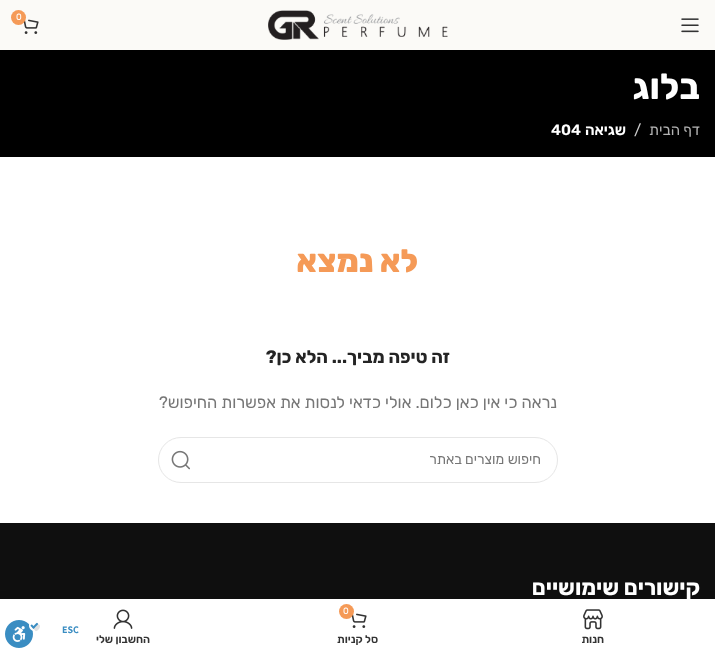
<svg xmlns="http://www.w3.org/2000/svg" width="715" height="654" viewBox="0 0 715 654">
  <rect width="100%" height="100%" fill="#fff"/>
  <path d="M0 0h715v50H0z" fill="#fbfaf7"/>
  <image x="268" y="10" width="180" height="30" href="img/1.png"/>
  <image x="23" y="19" width="16" height="15" href="img/2.png"/>
  <circle cx="18.5" cy="17.5" r="7.5" fill="#f59a57"/>
  <image x="681" y="18" width="18" height="15" href="img/3.png"/>
  <path d="M0 50h715v107H0z" fill="#000"/>
  <rect x="158.5" y="437.5" width="399" height="45" rx="22.5" fill="none" stroke="#e6e6e6"/>
  <image x="171" y="450" width="19" height="20" href="img/4.png"/>
  <path d="M0 523h715v76H0z" fill="#0f0f0f"/>
  <path d="M0 599h715v55H0z" fill="#0000001f" filter="blur(4.5px)"/>
  <path d="M0 599h715v55H0z" fill="#fff"/>
  <image x="583" y="609" width="20" height="21" href="img/5.png"/>
  <image x="351" y="613" width="16" height="15" href="img/6.png"/>
  <circle cx="346.5" cy="611.5" r="7.5" fill="#f59a57"/>
  <image x="113" y="609" width="20" height="20" href="img/7.png"/>
  <image x="5" y="620" width="35" height="28" href="img/8.png"/>
  <text x="16" y="20" font-family="Rubik" font-size="9" fill="#fff">0</text>
  <text x="700" y="99" font-family="Rubik" font-size="36" font-weight="bold" direction="rtl" fill="#fff">בלוג</text>
  <text x="700" y="135" font-family="Rubik" font-size="15" direction="rtl" fill="#b3b3b3">דף הבית</text>
  <text x="634" y="135" font-family="Rubik" font-size="15" fill="#ccc">/</text>
  <text x="626" y="135" font-family="Rubik" font-size="15" font-weight="600" direction="rtl" fill="#fff">שגיאה</text>
  <text x="551" y="135" font-family="Rubik" font-size="15" font-weight="600" fill="#fff">404</text>
  <text x="418" y="272" font-family="Rubik" font-size="32" font-weight="800" direction="rtl" fill="#f59a57">לא נמצא</text>
  <text x="450" y="363" font-family="Rubik" font-size="18" font-weight="bold" direction="rtl" fill="#242424">זה טיפה מביך... הלא כן?</text>
  <text x="557" y="408" font-family="Rubik" font-size="16.5" direction="rtl" fill="#767676">נראה כי אין כאן כלום. אולי כדאי לנסות את אפשרות החיפוש?</text>
  <text x="541" y="464" font-family="Rubik" font-size="14" direction="rtl" fill="#767676">חיפוש מוצרים באתר</text>
  <text x="700" y="595" font-family="Rubik" font-size="22" font-weight="bold" direction="rtl" fill="#fff">קישורים שימושיים</text>
  <text x="604" y="643" font-family="Rubik" font-size="11" font-weight="600" direction="rtl" fill="#333">חנות</text>
  <text x="343" y="614" font-family="Rubik" font-size="9" fill="#fff">0</text>
  <g font-family="Rubik" font-size="11" font-weight="600" direction="rtl" fill="#333">
    <text x="378" y="643">סל קניות</text>
    <text x="150" y="643">החשבון שלי</text>
  </g>
  <text x="62" y="633" font-family="Assistant" font-size="10" font-weight="bold" fill="#3a8dc2">ESC</text>
</svg>
